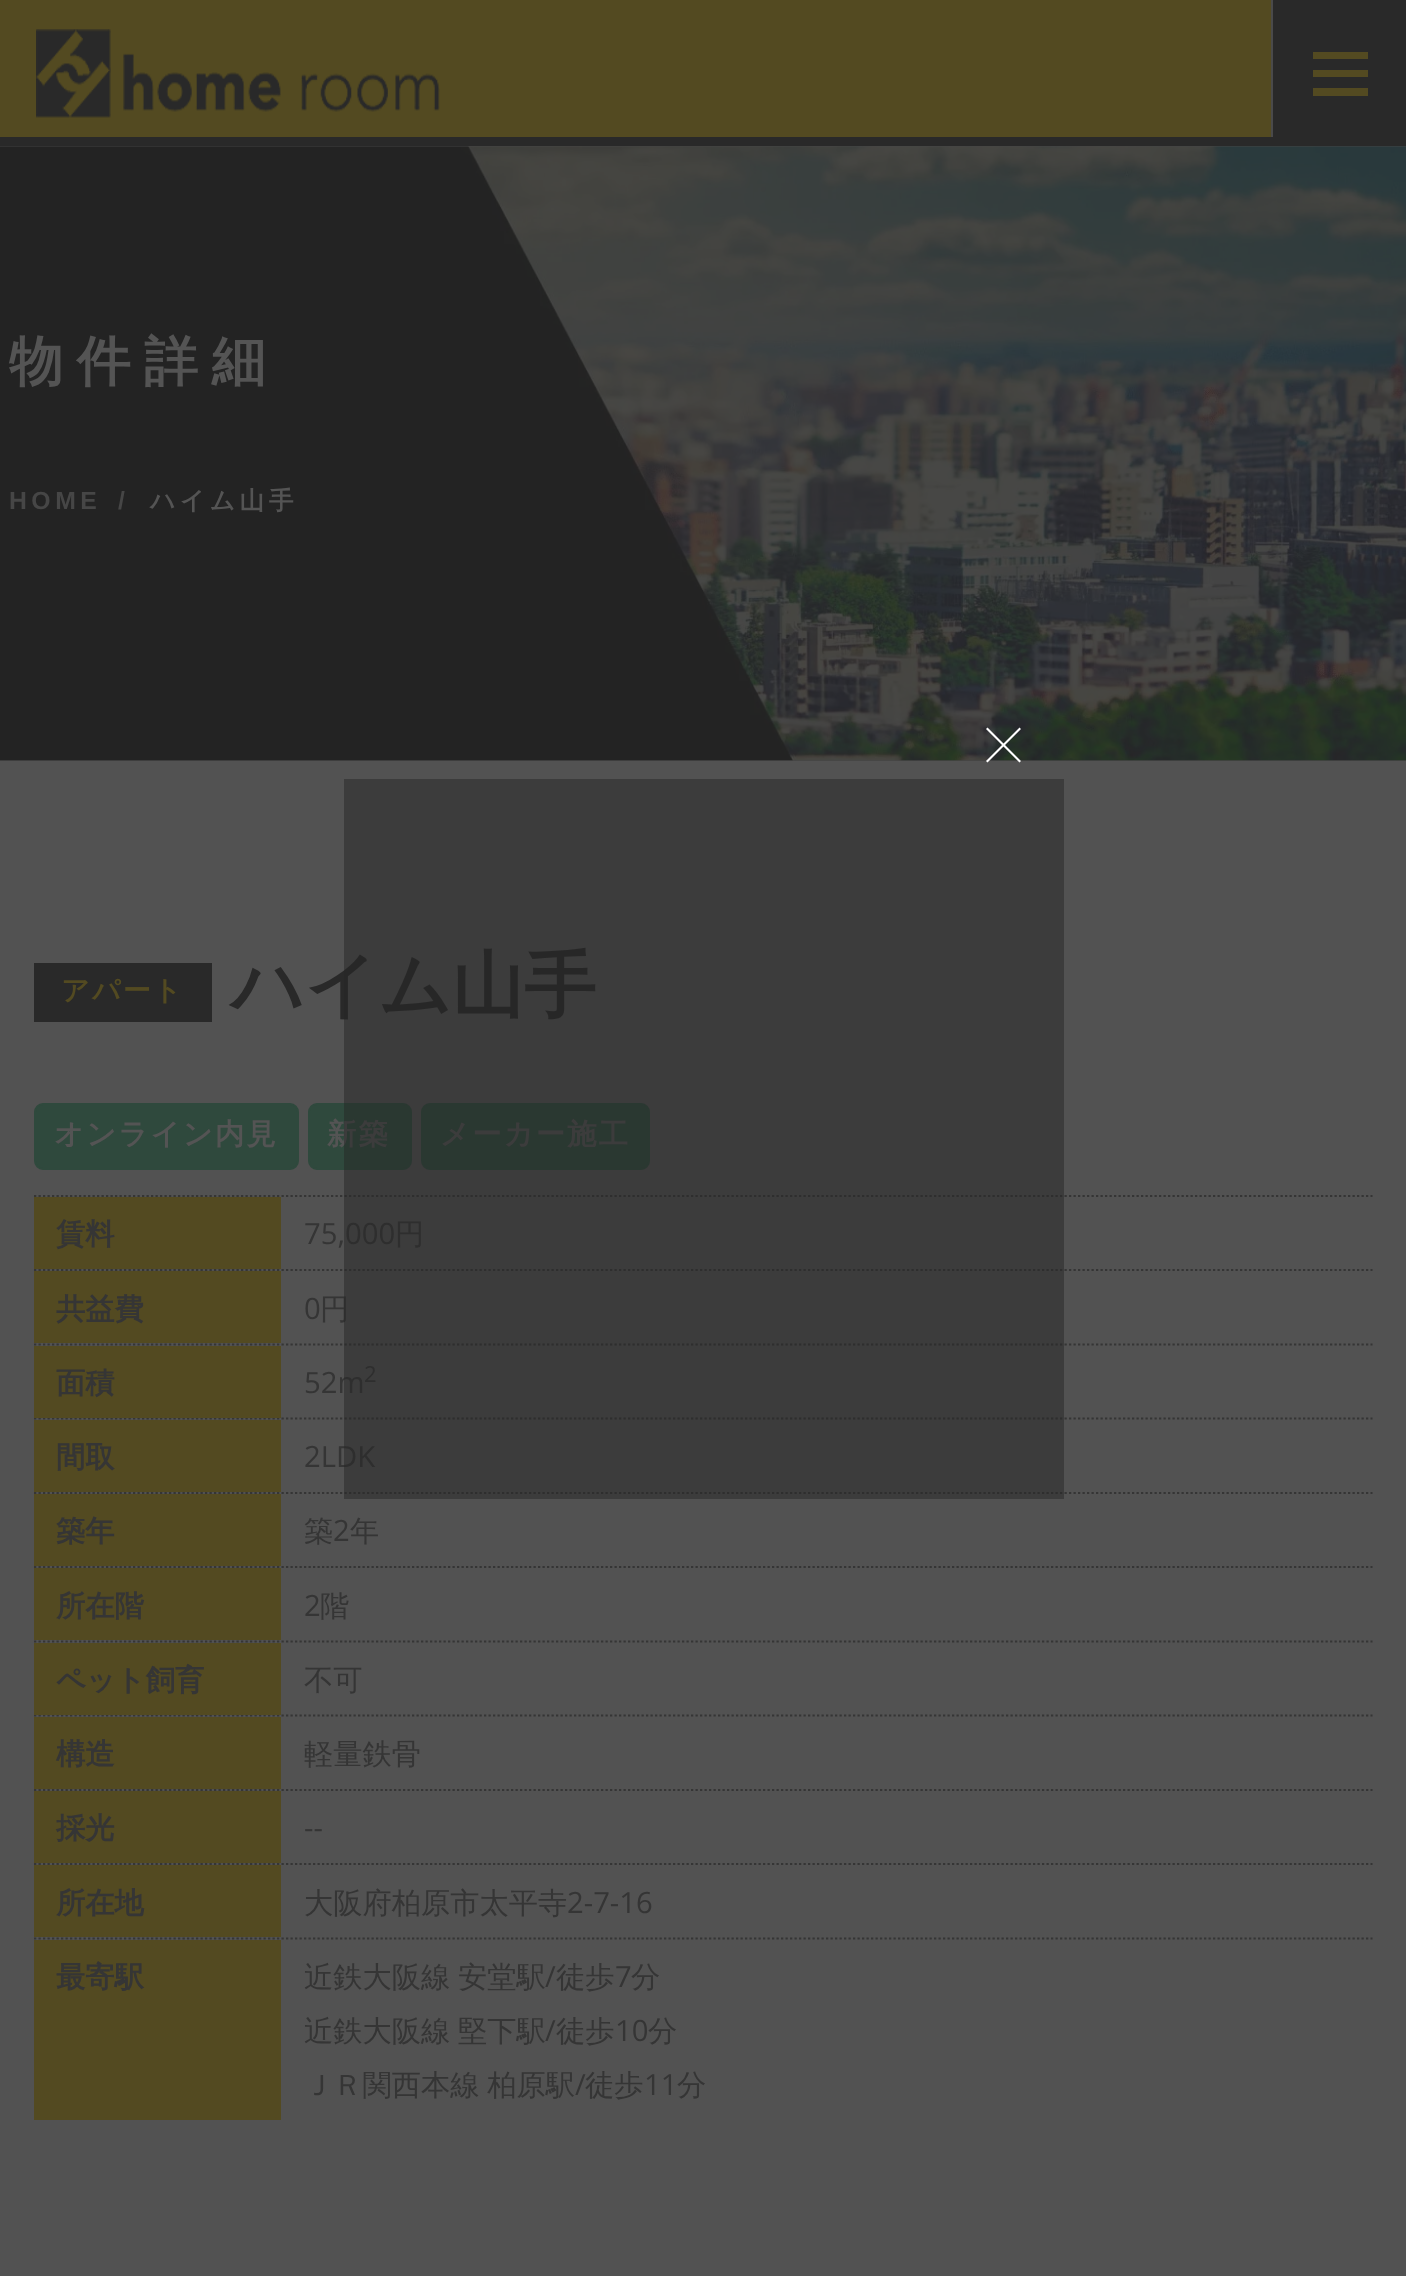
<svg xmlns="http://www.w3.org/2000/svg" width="1406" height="2276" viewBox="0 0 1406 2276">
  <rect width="100%" height="100%" fill="#525252"/>
  <path d="M0 146h1406v615H0z" fill="#464646"/>
  <path d="M0 0h1271v137H0z" fill="#534a21"/>
  <path d="M0 137h1406v9H0z" fill="#292929"/>
  <image x="36" y="29" width="404" height="89" href="img/1.png"/>
  <path d="M1273 0h133v137H1273z" fill="#292929"/>
  <path d="M1271 0h2v137H1271z" fill="#4a4a4a"/>
  <path d="M1368 52V59H1313V52ZM1313 77H1368V70H1313ZM1313 96H1368V88H1313Z" fill="#534a21"/>
  <image x="0" y="146" width="1406" height="615" href="img/2.png"/>
  <path d="M34 963h178v59H34z" fill="#292929"/>
  <rect x="35" y="1104" width="263" height="65" rx="8" fill="#2f493d" stroke="#2f493d" stroke-width="2"/>
  <rect x="309" y="1104" width="102" height="65" rx="8" fill="#2f493d" stroke="#2f493d" stroke-width="2"/>
  <rect x="422" y="1104" width="227" height="65" rx="8" fill="#2f493d" stroke="#2f493d" stroke-width="2"/>
  <path d="M34 1196H1372.5" fill="none" stroke="#353535" stroke-width="2.2" stroke-dasharray="2.25 2.25"/>
  <path d="M34 1270H1372.5" fill="none" stroke="#353535" stroke-width="2.2" stroke-dasharray="2.25 2.25"/>
  <path d="M34 1197h247v72H34z" fill="#534a21"/>
  <path d="M34 1344.5H1372.5" fill="none" stroke="#353535" stroke-width="2.2" stroke-dasharray="2.25 2.25"/>
  <path d="M34 1271h247v72H34z" fill="#534a21"/>
  <path d="M34 1418.5H1372.5" fill="none" stroke="#353535" stroke-width="2.2" stroke-dasharray="2.25 2.25"/>
  <path d="M34 1346h247v72H34z" fill="#534a21"/>
  <path d="M34 1493H1372.5" fill="none" stroke="#353535" stroke-width="2.2" stroke-dasharray="2.25 2.25"/>
  <path d="M34 1420h247v72H34z" fill="#534a21"/>
  <path d="M34 1567H1372.5" fill="none" stroke="#353535" stroke-width="2.2" stroke-dasharray="2.25 2.25"/>
  <path d="M34 1494h247v72H34z" fill="#534a21"/>
  <path d="M34 1641.5H1372.5" fill="none" stroke="#353535" stroke-width="2.2" stroke-dasharray="2.25 2.25"/>
  <path d="M34 1568h247v72H34z" fill="#534a21"/>
  <path d="M34 1715.5H1372.5" fill="none" stroke="#353535" stroke-width="2.2" stroke-dasharray="2.25 2.25"/>
  <path d="M34 1643h247v72H34z" fill="#534a21"/>
  <path d="M34 1790H1372.5" fill="none" stroke="#353535" stroke-width="2.2" stroke-dasharray="2.25 2.25"/>
  <path d="M34 1717h247v72H34z" fill="#534a21"/>
  <path d="M34 1864H1372.5" fill="none" stroke="#353535" stroke-width="2.2" stroke-dasharray="2.25 2.25"/>
  <path d="M34 1791h247v72H34z" fill="#534a21"/>
  <path d="M34 1938.5H1372.5" fill="none" stroke="#353535" stroke-width="2.2" stroke-dasharray="2.25 2.25"/>
  <path d="M34 1865h247v72H34z" fill="#534a21"/>
  <path d="M34 1940h247v180H34z" fill="#534a21"/>
  <path d="M1005 745L1021 761L1019.5 762.5L1003.5 746.5L987.5 762.5L986 761L1002 745L986 729L987.5 727.5L1003.5 743.5L1019.5 727.5L1021 729Z" fill="#fff"/>
  <text x="9" y="380" font-family="WenQuanYi Zen Hei" font-size="54" font-weight="bold" letter-spacing="13.5" fill="#545454">物件詳細</text>
  <g font-family="Liberation Sans" font-size="24.75" font-weight="bold" letter-spacing="4.5" fill="#464646">
    <text x="9" y="509">HOME</text>
    <text x="118" y="509">/</text>
  </g>
  <text x="150" y="509" font-family="WenQuanYi Zen Hei" font-size="24.75" font-weight="bold" letter-spacing="4.5" fill="#545454">ハイム山手</text>
  <text x="61" y="1000" font-family="WenQuanYi Zen Hei" font-size="28" font-weight="bold" letter-spacing="2.25" fill="#534a21">アパート</text>
  <text x="231" y="1010" font-family="WenQuanYi Zen Hei" font-size="72" font-weight="bold" fill="#292929">ハイム山手</text>
  <g font-family="WenQuanYi Zen Hei" font-size="29.25" font-weight="bold" letter-spacing="2.25" fill="#545454">
    <text x="54" y="1144">オンライン内見</text>
    <text x="327" y="1144">新築</text>
    <text x="440" y="1144">メーカー施工</text>
  </g>
  <text x="56" y="1244" font-family="WenQuanYi Zen Hei" font-size="29.25" font-weight="bold" fill="#353535">賃料</text>
  <text x="304" y="1244" font-family="Open Sans" font-size="29.25" fill="#353535">75,000</text>
  <text x="395" y="1244" font-family="WenQuanYi Zen Hei" font-size="29.25" font-weight="500" fill="#353535">円</text>
  <text x="56" y="1319" font-family="WenQuanYi Zen Hei" font-size="29.25" font-weight="bold" fill="#353535">共益費</text>
  <text x="304" y="1319" font-family="Open Sans" font-size="29.25" fill="#353535">0</text>
  <text x="320" y="1319" font-family="WenQuanYi Zen Hei" font-size="29.25" font-weight="500" fill="#353535">円</text>
  <text x="56" y="1393" font-family="WenQuanYi Zen Hei" font-size="29.25" font-weight="bold" fill="#353535">面積</text>
  <text x="304" y="1393" font-family="Open Sans" font-size="29.25" fill="#353535">52m</text>
  <text x="364" y="1382" font-family="Open Sans" font-size="22" fill="#353535">2</text>
  <text x="56" y="1467" font-family="WenQuanYi Zen Hei" font-size="29.25" font-weight="bold" fill="#353535">間取</text>
  <text x="304" y="1467" font-family="Open Sans" font-size="29.25" fill="#353535">2LDK</text>
  <path d="M344 779h720v720H344z" fill="#2929294d"/>
  <text x="56" y="1541" font-family="WenQuanYi Zen Hei" font-size="29.25" font-weight="bold" fill="#353535">築年</text>
  <text x="304" y="1541" font-family="WenQuanYi Zen Hei" font-size="29.25" font-weight="500" fill="#353535">築</text>
  <text x="333" y="1541" font-family="Open Sans" font-size="29.25" fill="#353535">2</text>
  <text x="350" y="1541" font-family="WenQuanYi Zen Hei" font-size="29.25" font-weight="500" fill="#353535">年</text>
  <text x="56" y="1616" font-family="WenQuanYi Zen Hei" font-size="29.25" font-weight="bold" fill="#353535">所在階</text>
  <text x="304" y="1616" font-family="Open Sans" font-size="29.25" fill="#353535">2</text>
  <text x="320" y="1616" font-family="WenQuanYi Zen Hei" font-size="29.25" font-weight="500" fill="#353535">階</text>
  <text x="56" y="1690" font-family="WenQuanYi Zen Hei" font-size="29.25" font-weight="bold" fill="#353535">ペット飼育</text>
  <text x="304" y="1690" font-family="WenQuanYi Zen Hei" font-size="29.25" font-weight="500" fill="#353535">不可</text>
  <text x="56" y="1764" font-family="WenQuanYi Zen Hei" font-size="29.25" font-weight="bold" fill="#353535">構造</text>
  <text x="304" y="1764" font-family="WenQuanYi Zen Hei" font-size="29.25" font-weight="500" fill="#353535">軽量鉄骨</text>
  <text x="56" y="1838" font-family="WenQuanYi Zen Hei" font-size="29.25" font-weight="bold" fill="#353535">採光</text>
  <text x="304" y="1838" font-family="Open Sans" font-size="29.25" fill="#353535">--</text>
  <text x="56" y="1913" font-family="WenQuanYi Zen Hei" font-size="29.25" font-weight="bold" fill="#353535">所在地</text>
  <text x="304" y="1913" font-family="WenQuanYi Zen Hei" font-size="29.25" font-weight="500" fill="#353535">大阪府柏原市太平寺</text>
  <text x="567" y="1913" font-family="Open Sans" font-size="29.25" fill="#353535">2-7-16</text>
  <text x="56" y="1987" font-family="WenQuanYi Zen Hei" font-size="29.25" font-weight="bold" fill="#353535">最寄駅</text>
  <text x="304" y="1987" word-spacing="-1" font-family="WenQuanYi Zen Hei" font-size="29.25" font-weight="500" fill="#353535">近鉄大阪線 安堂駅</text>
  <text x="545" y="1987" font-family="Open Sans" font-size="29.25" fill="#353535">/</text>
  <text x="556" y="1987" font-family="WenQuanYi Zen Hei" font-size="29.25" font-weight="500" fill="#353535">徒歩</text>
  <text x="615" y="1987" font-family="Open Sans" font-size="29.25" fill="#353535">7</text>
  <g font-family="WenQuanYi Zen Hei" font-size="29.25" font-weight="500" fill="#353535">
    <text x="631" y="1987">分</text>
    <text x="304" y="2041" word-spacing="-1">近鉄大阪線 堅下駅</text>
  </g>
  <text x="545" y="2041" font-family="Open Sans" font-size="29.25" fill="#353535">/</text>
  <text x="556" y="2041" font-family="WenQuanYi Zen Hei" font-size="29.25" font-weight="500" fill="#353535">徒歩</text>
  <text x="615" y="2041" font-family="Open Sans" font-size="29.25" fill="#353535">10</text>
  <g font-family="WenQuanYi Zen Hei" font-size="29.25" font-weight="500" fill="#353535">
    <text x="648" y="2041">分</text>
    <text x="304" y="2095" word-spacing="-1">ＪＲ関西本線 柏原駅</text>
  </g>
  <text x="575" y="2095" font-family="Open Sans" font-size="29.25" fill="#353535">/</text>
  <text x="585" y="2095" font-family="WenQuanYi Zen Hei" font-size="29.25" font-weight="500" fill="#353535">徒歩</text>
  <text x="644" y="2095" font-family="Open Sans" font-size="29.25" fill="#353535">11</text>
  <text x="677" y="2095" font-family="WenQuanYi Zen Hei" font-size="29.25" font-weight="500" fill="#353535">分</text>
  <path d="M344 779h720v720H344z" fill="#2929294d"/>
</svg>
